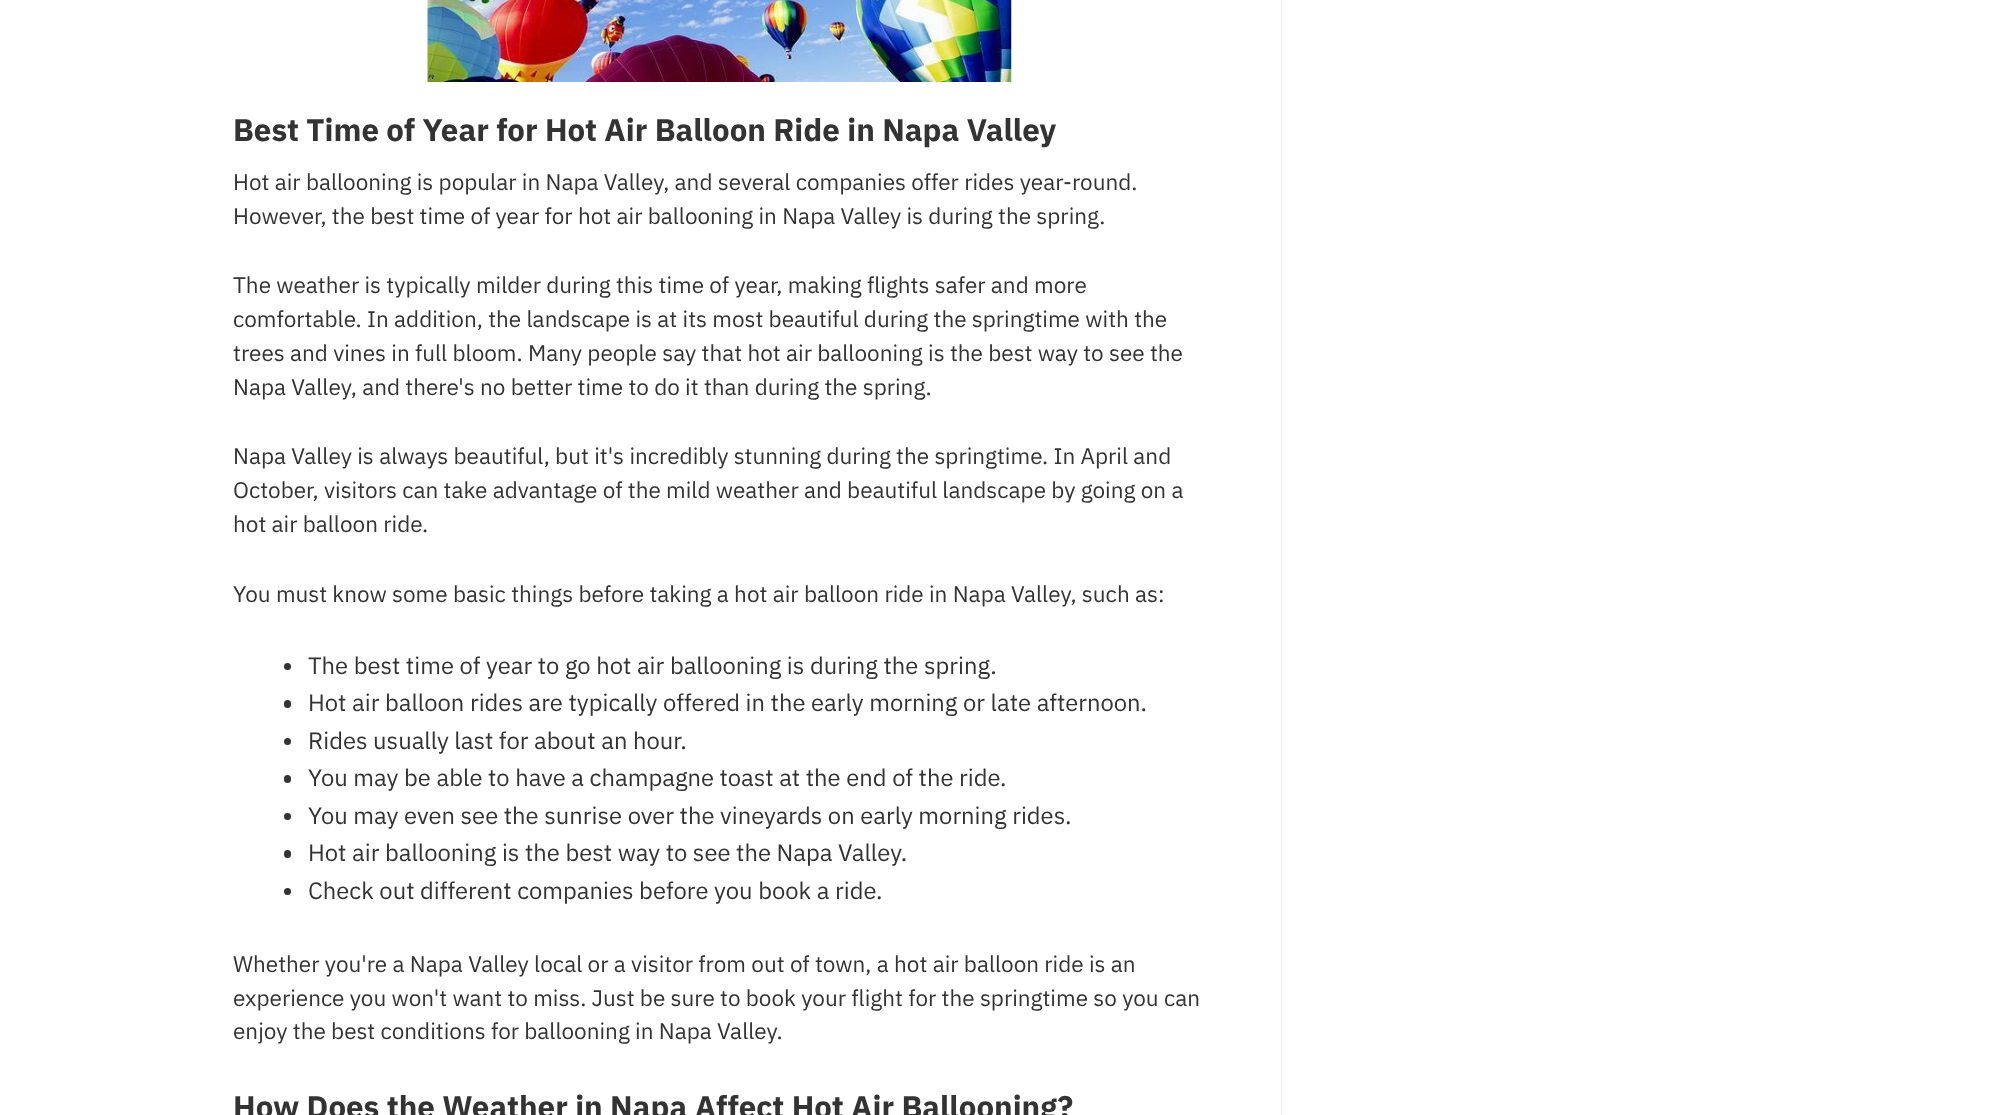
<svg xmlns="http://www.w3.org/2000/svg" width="2014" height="1115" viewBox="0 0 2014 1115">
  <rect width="100%" height="100%" fill="#fff"/>
  <image x="427" y="0" width="585" height="82" href="img/1.png"/>
  <circle cx="287.5" cy="666.5" r="3.5" fill="#333"/>
  <rect x="284" y="700" width="7" height="8" rx="3.5" fill="#333"/>
  <circle cx="287.5" cy="741.5" r="3.5" fill="#333"/>
  <rect x="284" y="775" width="7" height="8" rx="3.5" fill="#333"/>
  <circle cx="287.5" cy="816.5" r="3.5" fill="#333"/>
  <rect x="284" y="850" width="7" height="8" rx="3.5" fill="#333"/>
  <circle cx="287.5" cy="891.5" r="3.5" fill="#333"/>
  <path d="M1281 0h1v1115H1281z" fill="#eee"/>
  <text x="233" y="141" font-family="IBM Plex Sans" font-size="31.25" font-weight="bold" fill="#333">Best Time of Year for Hot Air Balloon Ride in Napa Valley</text>
  <g font-family="IBM Plex Sans" font-size="22.5" fill="#333">
    <text x="233" y="190">Hot air ballooning is popular in Napa Valley, and several companies offer rides year-round.</text>
    <text x="233" y="224">However, the best time of year for hot air ballooning in Napa Valley is during the spring.</text>
    <text x="233" y="293">The weather is typically milder during this time of year, making flights safer and more</text>
    <text x="233" y="327">comfortable. In addition, the landscape is at its most beautiful during the springtime with the</text>
    <text x="233" y="361">trees and vines in full bloom. Many people say that hot air ballooning is the best way to see the</text>
    <text x="233" y="395">Napa Valley, and there's no better time to do it than during the spring.</text>
    <text x="233" y="464">Napa Valley is always beautiful, but it's incredibly stunning during the springtime. In April and</text>
    <text x="233" y="498">October, visitors can take advantage of the mild weather and beautiful landscape by going on a</text>
    <text x="233" y="532">hot air balloon ride.</text>
    <text x="233" y="602">You must know some basic things before taking a hot air balloon ride in Napa Valley, such as:</text>
  </g>
  <g font-family="IBM Plex Sans" font-size="23.75" fill="#333">
    <text x="308" y="674">The best time of year to go hot air ballooning is during the spring.</text>
    <text x="308" y="711">Hot air balloon rides are typically offered in the early morning or late afternoon.</text>
    <text x="308" y="749">Rides usually last for about an hour.</text>
    <text x="308" y="786">You may be able to have a champagne toast at the end of the ride.</text>
    <text x="308" y="824">You may even see the sunrise over the vineyards on early morning rides.</text>
    <text x="308" y="861">Hot air ballooning is the best way to see the Napa Valley.</text>
    <text x="308" y="899">Check out different companies before you book a ride.</text>
  </g>
  <g font-family="IBM Plex Sans" font-size="22.5" fill="#333">
    <text x="233" y="972">Whether you're a Napa Valley local or a visitor from out of town, a hot air balloon ride is an</text>
    <text x="233" y="1006">experience you won't want to miss. Just be sure to book your flight for the springtime so you can</text>
    <text x="233" y="1039">enjoy the best conditions for ballooning in Napa Valley.</text>
  </g>
  <text x="233" y="1118" font-family="IBM Plex Sans" font-size="31.25" font-weight="bold" fill="#333">How Does the Weather in Napa Affect Hot Air Ballooning?</text>
</svg>
